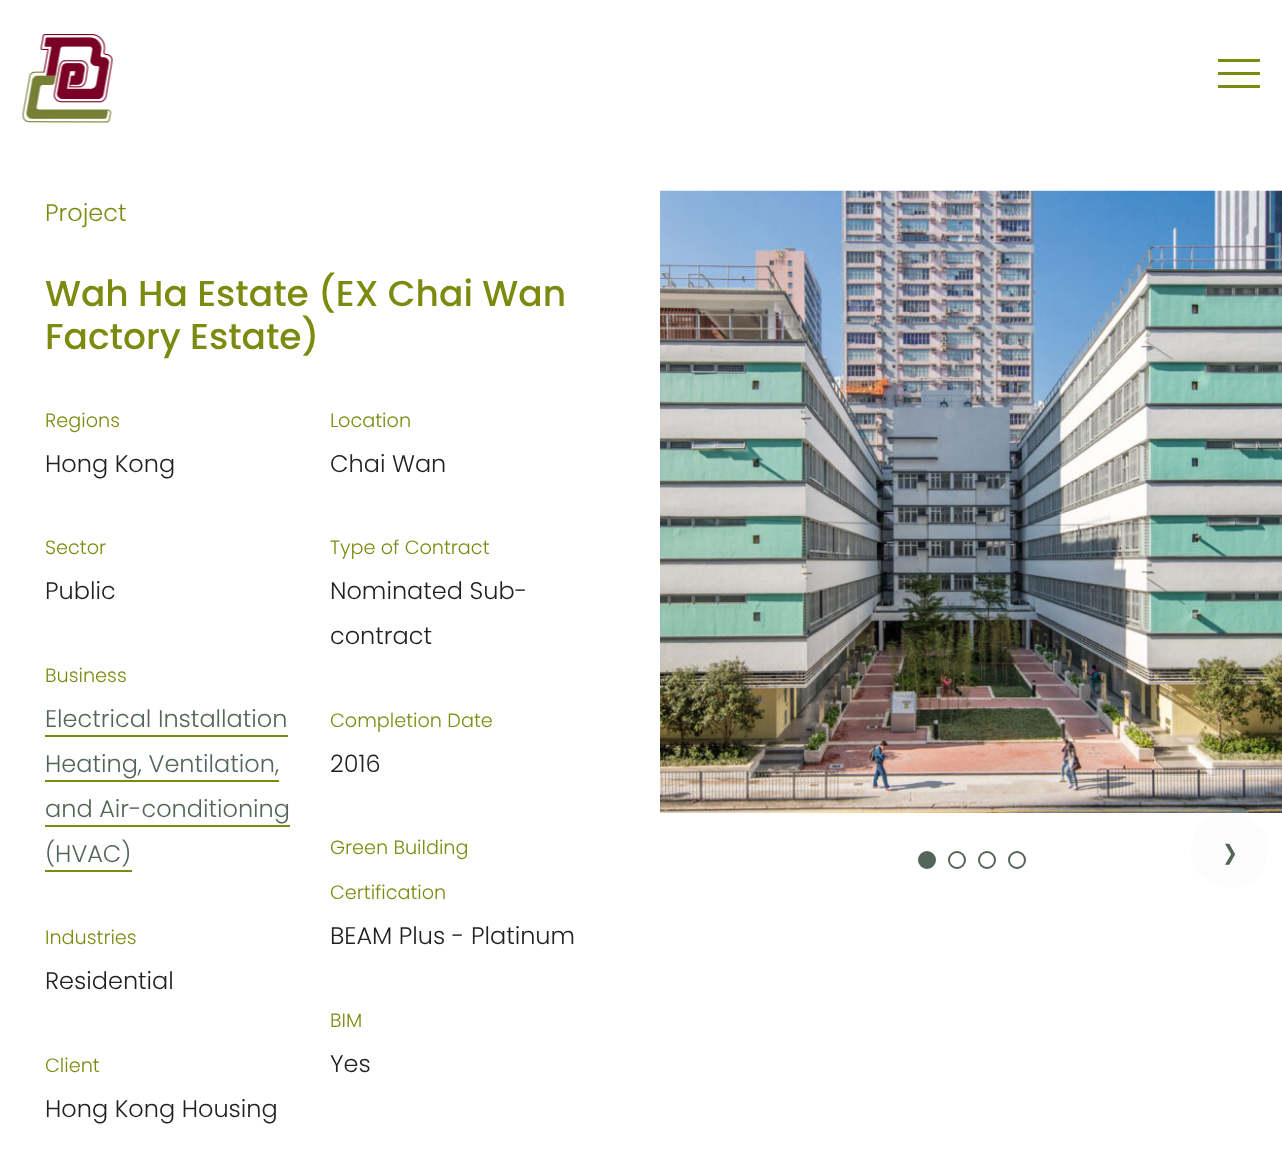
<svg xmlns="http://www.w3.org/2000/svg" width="1282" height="1153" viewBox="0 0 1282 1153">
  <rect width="100%" height="100%" fill="#fff"/>
  <image x="22" y="34" width="91" height="89" href="img/1.png"/>
  <path d="M1218 59h42v3H1218z" fill="#7c8c0f"/>
  <path d="M1218 72h42v3H1218z" fill="#7c8c0f"/>
  <path d="M1218 85h42v3H1218z" fill="#7c8c0f"/>
  <path d="M45 735h243v2H45z" fill="#7c8b0f"/>
  <path d="M45 780h234v2H45z" fill="#7c8b0f"/>
  <path d="M45 825h245v2H45z" fill="#7c8b0f"/>
  <path d="M45 870h87v2H45z" fill="#7c8b0f"/>
  <image x="660" y="190" width="622" height="623" href="img/2.png"/>
  <circle cx="927" cy="860" r="8" fill="#536658" stroke="#536658" stroke-width="2"/>
  <circle cx="957" cy="860" r="8" fill="none" stroke="#536658" stroke-width="2"/>
  <circle cx="987" cy="860" r="8" fill="none" stroke="#536658" stroke-width="2"/>
  <circle cx="1017" cy="860" r="8" fill="none" stroke="#536658" stroke-width="2"/>
  <rect x="1191" y="813" width="77" height="75" rx="37.5" fill="#fcfcfc"/>
  <text x="45" y="221" font-family="Poppins" font-size="24" font-weight="300" fill="#7c8b0f">Project</text>
  <g font-family="Poppins" font-size="36" font-weight="500" fill="#7c8b0f">
    <text x="45" y="306">Wah Ha Estate (EX Chai Wan</text>
    <text x="45" y="349">Factory Estate)</text>
  </g>
  <text x="45" y="427" font-family="Poppins" font-size="19.25" font-weight="300" fill="#7c8b0f">Regions</text>
  <text x="45" y="472" font-family="Poppins" font-size="24" font-weight="300" fill="#212121">Hong Kong</text>
  <text x="45" y="554" font-family="Poppins" font-size="19.25" font-weight="300" fill="#7c8b0f">Sector</text>
  <text x="45" y="599" font-family="Poppins" font-size="24" font-weight="300" fill="#212121">Public</text>
  <text x="45" y="682" font-family="Poppins" font-size="19.25" font-weight="300" fill="#7c8b0f">Business</text>
  <g font-family="Poppins" font-size="24" font-weight="300" fill="#536658">
    <text x="45" y="727">Electrical Installation</text>
    <text x="45" y="772">Heating, Ventilation,</text>
    <text x="45" y="817">and Air-conditioning</text>
    <text x="45" y="862">(HVAC)</text>
  </g>
  <text x="45" y="944" font-family="Poppins" font-size="19.25" font-weight="300" fill="#7c8b0f">Industries</text>
  <text x="45" y="989" font-family="Poppins" font-size="24" font-weight="300" fill="#212121">Residential</text>
  <text x="45" y="1072" font-family="Poppins" font-size="19.25" font-weight="300" fill="#7c8b0f">Client</text>
  <text x="45" y="1117" font-family="Poppins" font-size="24" font-weight="300" fill="#212121">Hong Kong Housing</text>
  <text x="330" y="427" font-family="Poppins" font-size="19.25" font-weight="300" fill="#7c8b0f">Location</text>
  <text x="330" y="472" font-family="Poppins" font-size="24" font-weight="300" fill="#212121">Chai Wan</text>
  <text x="330" y="554" font-family="Poppins" font-size="19.25" font-weight="300" fill="#7c8b0f">Type of Contract</text>
  <g font-family="Poppins" font-size="24" font-weight="300" fill="#212121">
    <text x="330" y="599">Nominated Sub-</text>
    <text x="330" y="644">contract</text>
  </g>
  <text x="330" y="727" font-family="Poppins" font-size="19.25" font-weight="300" fill="#7c8b0f">Completion Date</text>
  <text x="330" y="772" font-family="Poppins" font-size="24" font-weight="300" fill="#212121">2016</text>
  <g font-family="Poppins" font-size="19.25" font-weight="300" fill="#7c8b0f">
    <text x="330" y="854">Green Building</text>
    <text x="330" y="899">Certification</text>
  </g>
  <text x="330" y="944" font-family="Poppins" font-size="24" font-weight="300" fill="#212121">BEAM Plus - Platinum</text>
  <text x="330" y="1027" font-family="Poppins" font-size="19.25" font-weight="300" fill="#7c8b0f">BIM</text>
  <text x="330" y="1072" font-family="Poppins" font-size="24" font-weight="300" fill="#212121">Yes</text>
  <text x="1222" y="872" font-family="Poppins" font-size="60" font-weight="300" fill="#536658">›</text>
</svg>
